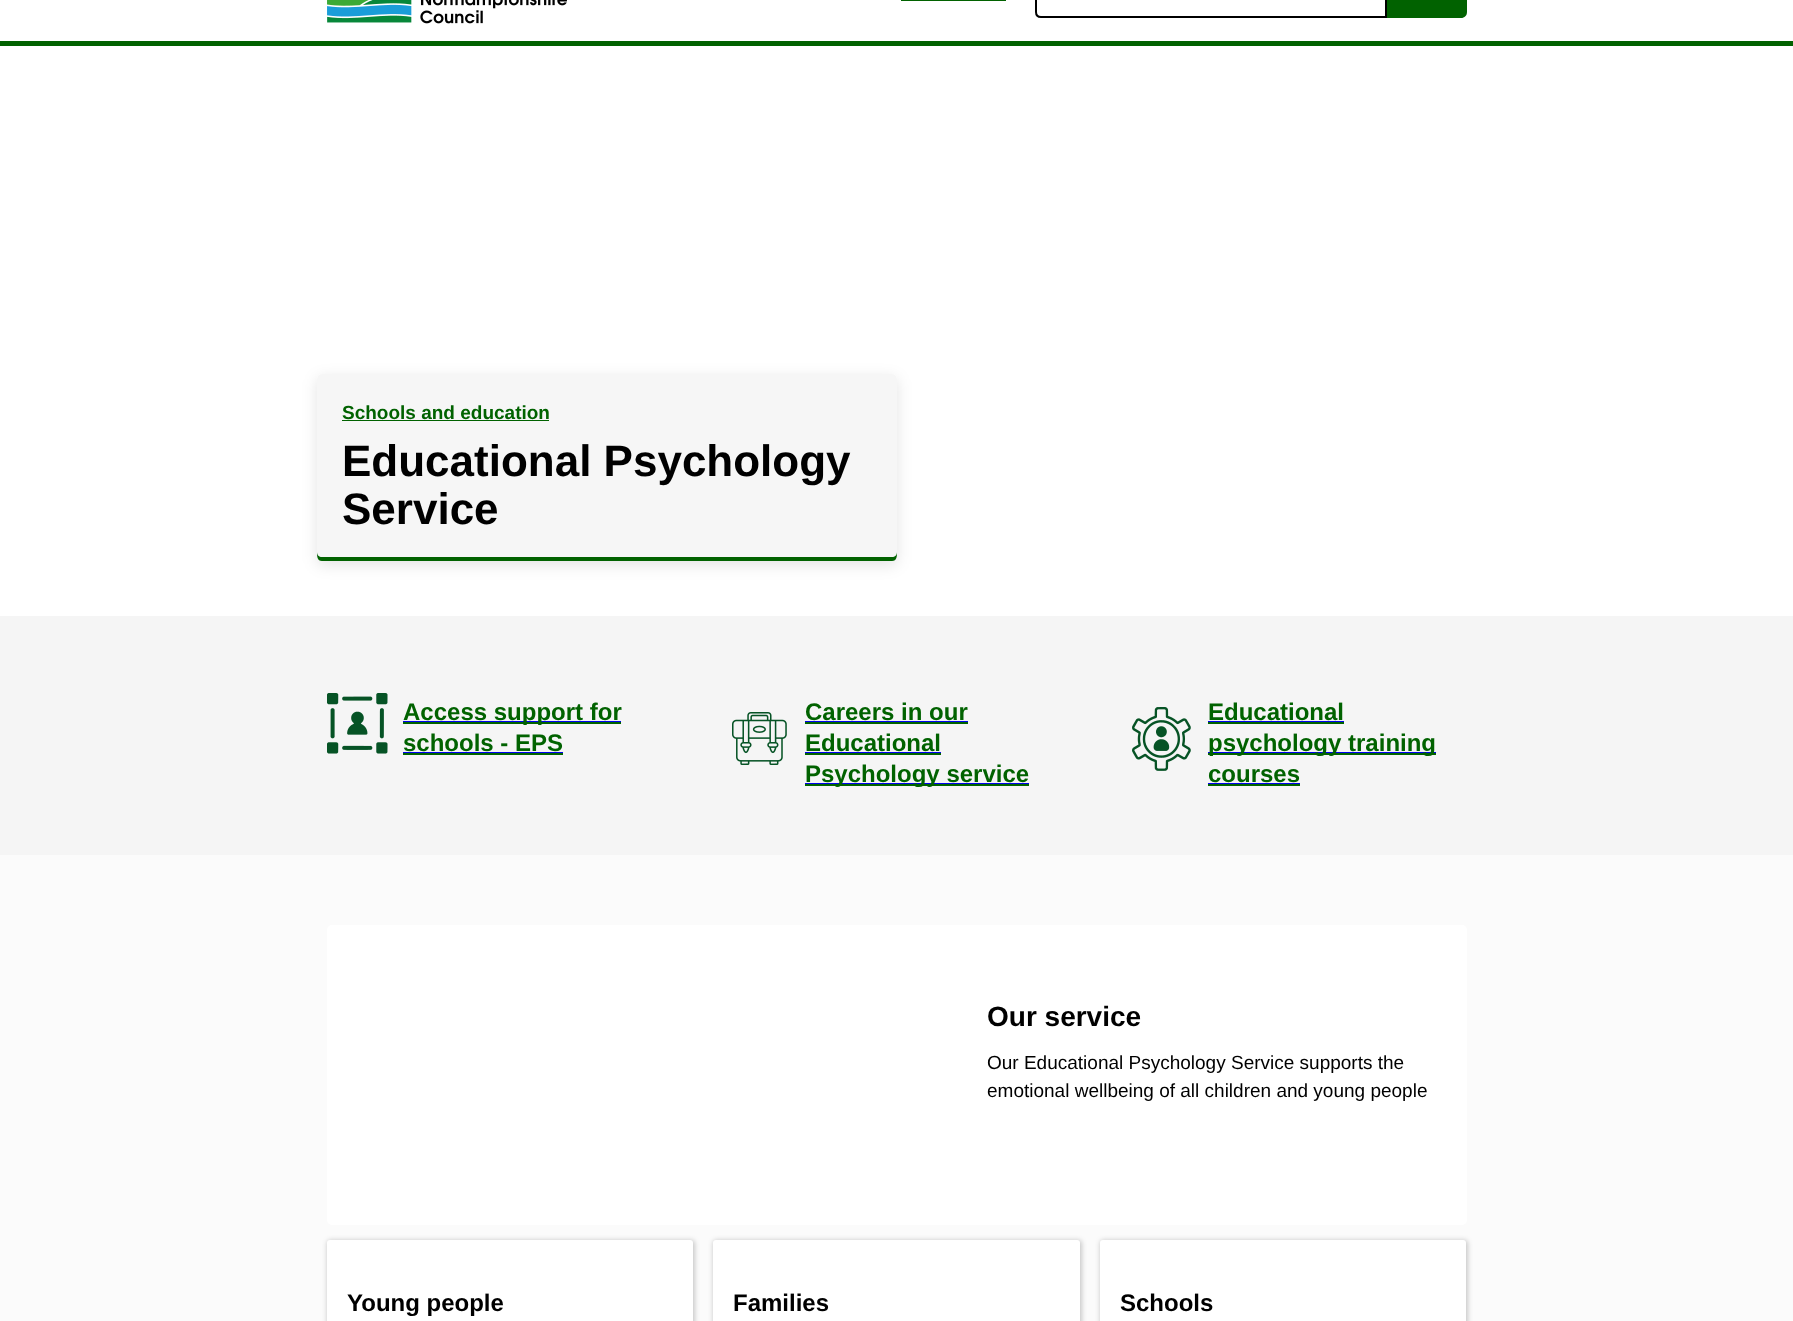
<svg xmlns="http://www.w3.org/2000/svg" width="1793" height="1321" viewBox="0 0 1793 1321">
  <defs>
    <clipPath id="clip1"><path d="M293 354H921V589H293ZM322 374H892C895 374 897 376 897 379V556C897 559 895 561 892 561H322C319 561 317 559 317 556V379C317 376 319 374 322 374Z" clip-rule="evenodd"/></clipPath>
  </defs>
  <rect width="100%" height="100%" fill="#fff"/>
  <path d="M0 41h1793v5H0z" fill="#016200"/>
  <image x="327" y="0" width="240" height="24" href="img/1.png"/>
  <path d="M901 0h105v1H901z" fill="#016200"/>
  <path d="M1041-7H1386V17H1041C1038 17 1036 15 1036 12V-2C1036-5 1038-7 1041-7Z" fill="none" stroke="#000" stroke-width="2"/>
  <path d="M1387-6H1461C1464.5-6 1467-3.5 1467 0V12C1467 15.5 1464.5 18 1461 18H1387Z" fill="#016200"/>
  <g clip-path="url(#clip1)">
    <rect x="317" y="378" width="580" height="187" rx="5" fill="#0000001c" filter="blur(7.5px)"/>
  </g>
  <rect x="317" y="374" width="580" height="187" rx="5" fill="#f5f5f5f2"/>
  <path d="M317 552C317 556 317 561 322 561H892C897 561 897 556 897 552C897 555 895 557 892 557H322C319 557 317 555 317 552Z" fill="#016200"/>
  <path d="M342 420h207v1H342z" fill="#016200"/>
  <path d="M0 616h1793v239H0z" fill="#f5f5f5"/>
  <image x="327" y="693" width="61" height="61" href="img/2.png"/>
  <path d="M403 722h218v2H403z" fill="#016200"/>
  <path d="M403 721h218v1H403z" fill="#00e"/>
  <path d="M403 753h160v2H403z" fill="#016200"/>
  <path d="M403 752h160v1H403z" fill="#00e"/>
  <image x="732" y="712" width="55" height="53" href="img/3.png"/>
  <path d="M805 722h163v2H805z" fill="#016200"/>
  <path d="M805 721h163v1H805z" fill="#00e"/>
  <path d="M805 753h136v2H805z" fill="#016200"/>
  <path d="M805 752h136v1H805z" fill="#00e"/>
  <path d="M805 784h224v2H805z" fill="#016200"/>
  <path d="M805 783h224v1H805z" fill="#00e"/>
  <image x="1132" y="707" width="59" height="64" href="img/4.png"/>
  <path d="M1208 722h136v2H1208z" fill="#016200"/>
  <path d="M1208 721h136v1H1208z" fill="#00e"/>
  <path d="M1208 753h228v2H1208z" fill="#016200"/>
  <path d="M1208 752h228v1H1208z" fill="#00e"/>
  <path d="M1208 784h92v2H1208z" fill="#016200"/>
  <path d="M1208 783h92v1H1208z" fill="#00e"/>
  <path d="M0 855h1793v466H0z" fill="#fbfbfb"/>
  <rect x="327" y="925" width="1140" height="300" rx="5" fill="#fff"/>
  <rect x="327" y="1240" width="368" height="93" rx="4" fill="#00000033" filter="blur(2.5px)"/>
  <rect x="327" y="1240" width="366" height="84" rx="3" fill="#fff"/>
  <rect x="713" y="1240" width="369" height="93" rx="4" fill="#00000033" filter="blur(2.5px)"/>
  <rect x="713" y="1240" width="367" height="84" rx="3" fill="#fff"/>
  <rect x="1100" y="1240" width="368" height="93" rx="4" fill="#00000033" filter="blur(2.5px)"/>
  <rect x="1100" y="1240" width="366" height="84" rx="3" fill="#fff"/>
  <text x="342" y="419" font-family="Liberation Sans" font-size="19" font-weight="bold" fill="#016200">Schools and education</text>
  <g font-family="Liberation Sans" font-size="44" font-weight="bold" fill="#000">
    <text x="342" y="476">Educational Psychology</text>
    <text x="342" y="524">Service</text>
  </g>
  <g font-family="Liberation Sans" font-size="24" font-weight="bold" fill="#016200">
    <text x="403" y="720">Access support for</text>
    <text x="403" y="751">schools - EPS</text>
    <text x="805" y="720">Careers in our</text>
    <text x="805" y="751">Educational</text>
    <text x="805" y="782">Psychology service</text>
    <text x="1208" y="720">Educational</text>
    <text x="1208" y="751">psychology training</text>
    <text x="1208" y="782">courses</text>
  </g>
  <text x="987" y="1026" font-family="Liberation Sans" font-size="28" font-weight="bold" fill="#000">Our service</text>
  <g font-family="Liberation Sans" font-size="19" fill="#000">
    <text x="987" y="1069">Our Educational Psychology Service supports the</text>
    <text x="987" y="1097">emotional wellbeing of all children and young people</text>
  </g>
  <g font-family="Liberation Sans" font-size="24" font-weight="bold" fill="#000">
    <text x="347" y="1311">Young people</text>
    <text x="733" y="1311">Families</text>
    <text x="1120" y="1311">Schools</text>
  </g>
</svg>
